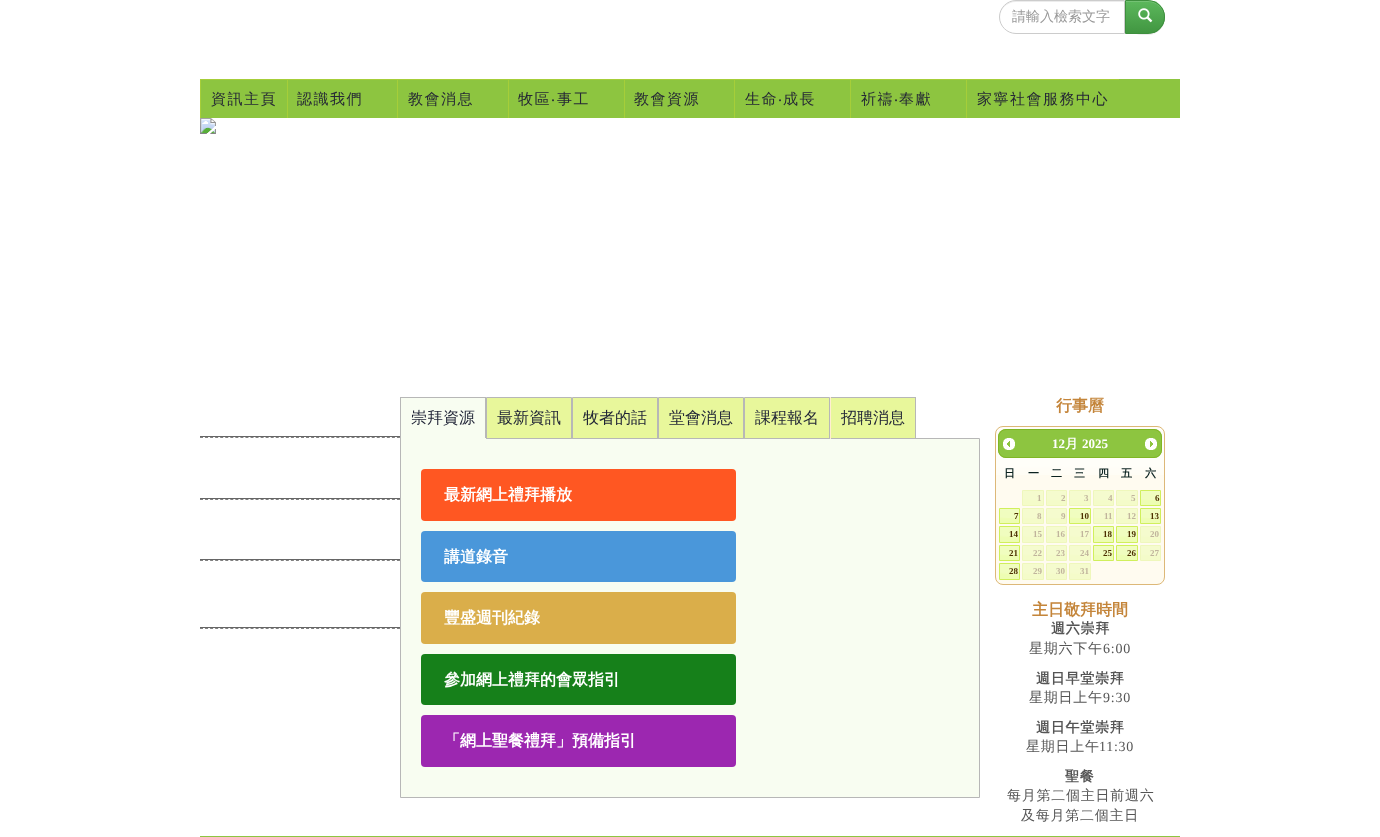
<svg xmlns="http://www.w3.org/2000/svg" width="1380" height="837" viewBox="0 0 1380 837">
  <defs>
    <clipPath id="clip1"><path d="M1125 0H1148C1157.5 0 1165 7.5 1165 17C1165 26.5 1157.5 34 1148 34H1125Z"/></clipPath>
    <linearGradient id="g1" gradientUnits="userSpaceOnUse" x1="1145" y1="1" x2="1145" y2="33"><stop offset="0" stop-color="#5cb85c"/><stop offset="1" stop-color="#419641"/></linearGradient>
  </defs>
  <rect width="100%" height="100%" fill="#fff"/>
  <rect x="1125" y="1" width="40" height="34" rx="17" fill="#00000012" filter="blur(0.5px)"/>
  <path d="M1016 2H1124V1H1016C1007 1 1000 8 1000 17C1000 9 1007 2 1016 2Z" fill="#ececec"/>
  <path d="M1016 .5H1124.5V33.5H1016C1007 33.5 999.5 26 999.5 17C999.5 8 1007 .5 1016 .5Z" fill="none" stroke="#ccc"/>
  <g clip-path="url(#clip1)">
    <path d="M1126 1h39v32H1126z" fill="url(#g1)"/>
  </g>
  <path d="M1126 2H1148C1157 2 1163.5 8.5 1164 17.5V17C1164 8 1157 1 1148 1H1126Z" fill="#ffffff26"/>
  <path d="M1125.5 .5H1148C1157 .5 1164.5 8 1164.5 17C1164.5 26 1157 33.5 1148 33.5H1125.5Z" fill="none" stroke="#3e8f3e"/>
  <image x="1138" y="8" width="15" height="15" href="img/1.png"/>
  <path d="M201 79h979v39H201z" fill="#8dc540"/>
  <path d="M200 79h919v1H200z" fill="#a6ce39"/>
  <path d="M200 79h1v39H200z" fill="#a6ce39"/>
  <path d="M287 79h1v39H287z" fill="#a6ce39"/>
  <path d="M397 79h1v39H397z" fill="#a6ce39"/>
  <path d="M508 79h1v39H508z" fill="#a6ce39"/>
  <path d="M624 79h1v39H624z" fill="#a6ce39"/>
  <path d="M734 79h1v39H734z" fill="#a6ce39"/>
  <path d="M850 79h1v39H850z" fill="#a6ce39"/>
  <path d="M966 79h1v39H966z" fill="#a6ce39"/>
  <image x="200" y="118" width="16" height="16" href="img/2.png"/>
  <path d="M200 436h200v1H200z" fill="#666"/>
  <path d="M200 437.5H400" fill="none" stroke="#808080" stroke-dasharray="3 2.05"/>
  <path d="M200 498h200v1H200z" fill="#666"/>
  <path d="M200 499.5H400" fill="none" stroke="#808080" stroke-dasharray="3 2.05"/>
  <path d="M200 559h200v1H200z" fill="#666"/>
  <path d="M200 560.5H400" fill="none" stroke="#808080" stroke-dasharray="3 2.05"/>
  <path d="M200 627h200v1H200z" fill="#666"/>
  <path d="M200 628.5H400" fill="none" stroke="#808080" stroke-dasharray="3 2.05"/>
  <path d="M401 398h84v40H401z" fill="#f8fdf1"/>
  <path d="M400 397h86v1H400z" fill="#b7b7b7"/>
  <path d="M400.5 438.5h579v359H400.5z" fill="#f8fdf1" stroke="#b7b7b7"/>
  <path d="M485 397h1v42H485z" fill="#b7b7b7"/>
  <path d="M400 438h86v1H400z" fill="#f8fdf1"/>
  <path d="M400 397h1v42H400z" fill="#b7b7b7"/>
  <path d="M486.5 397.5h85v41H486.5z" fill="#e8f79b" stroke="#b7b7b7"/>
  <path d="M572.5 397.5h85v41H572.5z" fill="#e8f79b" stroke="#b7b7b7"/>
  <path d="M658.5 397.5h85v41H658.5z" fill="#e8f79b" stroke="#b7b7b7"/>
  <path d="M744.5 397.5h85v41H744.5z" fill="#e8f79b" stroke="#b7b7b7"/>
  <path d="M831 398h84v40H831z" fill="#e8f79b"/>
  <path d="M830 397h86v1H830z" fill="#b7b7b7"/>
  <path d="M915 397h1v42H915z" fill="#b7b7b7"/>
  <path d="M830 397h1v42H830z" fill="#ffeed1"/>
  <rect x="421" y="469" width="315" height="52" rx="4" fill="#ff5722"/>
  <rect x="421" y="531" width="315" height="51" rx="4" fill="#4a97da"/>
  <rect x="421" y="592" width="315" height="52" rx="4" fill="#daae4a"/>
  <rect x="421" y="654" width="315" height="51" rx="4" fill="#16801a"/>
  <rect x="421" y="715" width="315" height="52" rx="4" fill="#9c27b0"/>
  <rect x="995" y="426" width="170" height="159" rx="8" fill="#fffbf0"/>
  <image x="995" y="427" width="170" height="48" href="img/3.png"/>
  <rect x="995.5" y="426.5" width="169" height="158" rx="7.5" fill="none" stroke="#ddb878"/>
  <image x="998" y="429" width="164" height="29" href="img/4.png"/>
  <rect x="998.5" y="429.5" width="163" height="28" rx="7.5" fill="none" stroke="#80b625"/>
  <image x="1003" y="438" width="12" height="12" href="img/5.png"/>
  <image x="1145" y="438" width="12" height="12" href="img/6.png"/>
  <path d="M1023 491h20v14H1023z" fill="#f8fbd6"/>
  <image x="1023" y="491" width="20" height="14" href="img/7.png"/>
  <path d="M1022.5 490.5h21v15H1022.5z" fill="none" stroke="#eff7bc"/>
  <path d="M1047 491h19v14H1047z" fill="#f8fbd6"/>
  <image x="1047" y="491" width="19" height="14" href="img/8.png"/>
  <path d="M1046.5 490.5h20v15H1046.5z" fill="none" stroke="#eff7bc"/>
  <path d="M1070 491h20v14H1070z" fill="#f8fbd6"/>
  <image x="1070" y="491" width="20" height="14" href="img/7.png"/>
  <path d="M1069.5 490.5h21v15H1069.5z" fill="none" stroke="#eff7bc"/>
  <path d="M1094 491h19v14H1094z" fill="#f8fbd6"/>
  <image x="1094" y="491" width="19" height="14" href="img/8.png"/>
  <path d="M1093.5 490.5h20v15H1093.5z" fill="none" stroke="#eff7bc"/>
  <path d="M1117 491h20v14H1117z" fill="#f8fbd6"/>
  <image x="1117" y="491" width="20" height="14" href="img/7.png"/>
  <path d="M1116.5 490.5h21v15H1116.5z" fill="none" stroke="#eff7bc"/>
  <image x="1141" y="491" width="19" height="14" href="img/9.png"/>
  <path d="M1140.5 490.5h20v15H1140.5z" fill="none" stroke="#d0ef5c"/>
  <image x="1000" y="509" width="19" height="14" href="img/9.png"/>
  <path d="M999.5 508.5h20v15H999.5z" fill="none" stroke="#d0ef5c"/>
  <path d="M1023 509h20v14H1023z" fill="#f8fbd6"/>
  <image x="1023" y="509" width="20" height="14" href="img/7.png"/>
  <path d="M1022.5 508.5h21v15H1022.5z" fill="none" stroke="#eff7bc"/>
  <path d="M1047 509h19v14H1047z" fill="#f8fbd6"/>
  <image x="1047" y="509" width="19" height="14" href="img/8.png"/>
  <path d="M1046.5 508.5h20v15H1046.5z" fill="none" stroke="#eff7bc"/>
  <image x="1070" y="509" width="20" height="14" href="img/10.png"/>
  <path d="M1069.5 508.5h21v15H1069.5z" fill="none" stroke="#d0ef5c"/>
  <path d="M1094 509h19v14H1094z" fill="#f8fbd6"/>
  <image x="1094" y="509" width="19" height="14" href="img/8.png"/>
  <path d="M1093.5 508.5h20v15H1093.5z" fill="none" stroke="#eff7bc"/>
  <path d="M1117 509h20v14H1117z" fill="#f8fbd6"/>
  <image x="1117" y="509" width="20" height="14" href="img/7.png"/>
  <path d="M1116.5 508.5h21v15H1116.5z" fill="none" stroke="#eff7bc"/>
  <image x="1141" y="509" width="19" height="14" href="img/9.png"/>
  <path d="M1140.5 508.5h20v15H1140.5z" fill="none" stroke="#d0ef5c"/>
  <image x="1000" y="527" width="19" height="15" href="img/11.png"/>
  <path d="M999.5 526.5h20v16H999.5z" fill="none" stroke="#d0ef5c"/>
  <path d="M1023 527h20v15H1023z" fill="#f8fbd6"/>
  <image x="1023" y="527" width="20" height="15" href="img/12.png"/>
  <path d="M1022.5 526.5h21v16H1022.5z" fill="none" stroke="#eff7bc"/>
  <path d="M1047 527h19v15H1047z" fill="#f8fbd6"/>
  <image x="1047" y="527" width="19" height="15" href="img/13.png"/>
  <path d="M1046.5 526.5h20v16H1046.5z" fill="none" stroke="#eff7bc"/>
  <path d="M1070 527h20v15H1070z" fill="#f8fbd6"/>
  <image x="1070" y="527" width="20" height="15" href="img/12.png"/>
  <path d="M1069.5 526.5h21v16H1069.5z" fill="none" stroke="#eff7bc"/>
  <image x="1094" y="527" width="19" height="15" href="img/11.png"/>
  <path d="M1093.5 526.5h20v16H1093.5z" fill="none" stroke="#d0ef5c"/>
  <image x="1117" y="527" width="20" height="15" href="img/14.png"/>
  <path d="M1116.5 526.5h21v16H1116.5z" fill="none" stroke="#d0ef5c"/>
  <path d="M1141 527h19v15H1141z" fill="#f8fbd6"/>
  <image x="1141" y="527" width="19" height="15" href="img/13.png"/>
  <path d="M1140.5 526.5h20v16H1140.5z" fill="none" stroke="#eff7bc"/>
  <image x="1000" y="546" width="19" height="14" href="img/9.png"/>
  <path d="M999.5 545.5h20v15H999.5z" fill="none" stroke="#d0ef5c"/>
  <path d="M1023 546h20v14H1023z" fill="#f8fbd6"/>
  <image x="1023" y="546" width="20" height="14" href="img/7.png"/>
  <path d="M1022.5 545.5h21v15H1022.5z" fill="none" stroke="#eff7bc"/>
  <path d="M1047 546h19v14H1047z" fill="#f8fbd6"/>
  <image x="1047" y="546" width="19" height="14" href="img/8.png"/>
  <path d="M1046.5 545.5h20v15H1046.5z" fill="none" stroke="#eff7bc"/>
  <path d="M1070 546h20v14H1070z" fill="#f8fbd6"/>
  <image x="1070" y="546" width="20" height="14" href="img/7.png"/>
  <path d="M1069.5 545.5h21v15H1069.5z" fill="none" stroke="#eff7bc"/>
  <image x="1094" y="546" width="19" height="14" href="img/9.png"/>
  <path d="M1093.5 545.5h20v15H1093.5z" fill="none" stroke="#d0ef5c"/>
  <image x="1117" y="546" width="20" height="14" href="img/10.png"/>
  <path d="M1116.5 545.5h21v15H1116.5z" fill="none" stroke="#d0ef5c"/>
  <path d="M1141 546h19v14H1141z" fill="#f8fbd6"/>
  <image x="1141" y="546" width="19" height="14" href="img/8.png"/>
  <path d="M1140.5 545.5h20v15H1140.5z" fill="none" stroke="#eff7bc"/>
  <image x="1000" y="564" width="19" height="15" href="img/11.png"/>
  <path d="M999.5 563.5h20v16H999.5z" fill="none" stroke="#d0ef5c"/>
  <path d="M1023 564h20v15H1023z" fill="#f8fbd6"/>
  <image x="1023" y="564" width="20" height="15" href="img/12.png"/>
  <path d="M1022.5 563.5h21v16H1022.5z" fill="none" stroke="#eff7bc"/>
  <path d="M1047 564h19v15H1047z" fill="#f8fbd6"/>
  <image x="1047" y="564" width="19" height="15" href="img/13.png"/>
  <path d="M1046.5 563.5h20v16H1046.5z" fill="none" stroke="#eff7bc"/>
  <path d="M1070 564h20v15H1070z" fill="#f8fbd6"/>
  <image x="1070" y="564" width="20" height="15" href="img/12.png"/>
  <path d="M1069.5 563.5h21v16H1069.5z" fill="none" stroke="#eff7bc"/>
  <path d="M200 836h980v1H200z" fill="#8dc540"/>
  <text x="1012" y="21" font-family="WenQuanYi Zen Hei" font-size="14" font-weight="500" fill="#999">請輸入檢索文字</text>
  <g font-family="WenQuanYi Zen Hei" font-size="15" font-weight="500" letter-spacing="1.5" fill="#252835">
    <text x="211" y="104">資訊主頁</text>
    <text x="297" y="104">認識我們</text>
    <text x="408" y="104">教會消息</text>
    <text x="518" y="104">牧區</text>
  </g>
  <text x="551" y="104" font-family="Noto Sans" font-size="15" letter-spacing="1.5" fill="#252835">‧</text>
  <g font-family="WenQuanYi Zen Hei" font-size="15" font-weight="500" letter-spacing="1.5" fill="#252835">
    <text x="557" y="104">事工</text>
    <text x="634" y="104">教會資源</text>
    <text x="745" y="104">生命</text>
  </g>
  <text x="778" y="104" font-family="Noto Sans" font-size="15" letter-spacing="1.5" fill="#252835">‧</text>
  <g font-family="WenQuanYi Zen Hei" font-size="15" font-weight="500" letter-spacing="1.5" fill="#252835">
    <text x="783" y="104">成長</text>
    <text x="861" y="104">祈禱</text>
  </g>
  <text x="894" y="104" font-family="Noto Sans" font-size="15" letter-spacing="1.5" fill="#252835">‧</text>
  <g font-family="WenQuanYi Zen Hei" font-size="15" font-weight="500" letter-spacing="1.5" fill="#252835">
    <text x="899" y="104">奉獻</text>
    <text x="977" y="104">家寧社會服務中心</text>
  </g>
  <g font-family="WenQuanYi Zen Hei" font-size="16" font-weight="500" fill="#1e2235">
    <text x="411" y="423">崇拜資源</text>
    <text x="497" y="423">最新資訊</text>
    <text x="583" y="423">牧者的話</text>
    <text x="669" y="423">堂會消息</text>
    <text x="755" y="423">課程報名</text>
    <text x="841" y="423">招聘消息</text>
  </g>
  <g font-family="WenQuanYi Zen Hei" font-size="16" font-weight="bold" fill="#fff">
    <text x="444" y="500">最新網上禮拜播放</text>
    <text x="444" y="562">講道錄音</text>
    <text x="444" y="623">豐盛週刊紀錄</text>
    <text x="444" y="685">參加網上禮拜的會眾指引</text>
    <text x="444" y="746">「網上聖餐禮拜」預備指引</text>
  </g>
  <text x="1056" y="411" font-family="WenQuanYi Zen Hei" font-size="16" font-weight="bold" fill="#c4853a">行事曆</text>
  <text x="1052" y="448" font-family="Liberation Serif" font-size="13" font-weight="bold" fill="#fff">12</text>
  <text x="1065" y="448" font-family="WenQuanYi Zen Hei" font-size="13" font-weight="bold" fill="#fff">月</text>
  <text x="1082" y="448" font-family="Liberation Serif" font-size="13" font-weight="bold" fill="#fff">2025</text>
  <g font-family="WenQuanYi Zen Hei" font-size="11" font-weight="bold" fill="#0b2220">
    <text x="1004" y="477">日</text>
    <text x="1028" y="477">一</text>
    <text x="1051" y="477">二</text>
    <text x="1074" y="477">三</text>
    <text x="1098" y="477">四</text>
    <text x="1121" y="477">五</text>
    <text x="1145" y="477">六</text>
  </g>
  <g font-family="Liberation Serif" font-size="9" font-weight="bold" fill="#c0b49c">
    <text x="1037" y="501">1</text>
    <text x="1061" y="501">2</text>
    <text x="1084" y="501">3</text>
    <text x="1108" y="501">4</text>
    <text x="1131" y="501">5</text>
  </g>
  <g font-family="Liberation Serif" font-size="9" font-weight="bold" fill="#4c3000">
    <text x="1155" y="501">6</text>
    <text x="1014" y="519">7</text>
  </g>
  <g font-family="Liberation Serif" font-size="9" font-weight="bold" fill="#c0b49c">
    <text x="1037" y="519">8</text>
    <text x="1061" y="519">9</text>
  </g>
  <text x="1080" y="519" font-family="Liberation Serif" font-size="9" font-weight="bold" fill="#4c3000">10</text>
  <g font-family="Liberation Serif" font-size="9" font-weight="bold" fill="#c0b49c">
    <text x="1104" y="519">11</text>
    <text x="1127" y="519">12</text>
  </g>
  <g font-family="Liberation Serif" font-size="9" font-weight="bold" fill="#4c3000">
    <text x="1150" y="519">13</text>
    <text x="1009" y="537">14</text>
  </g>
  <g font-family="Liberation Serif" font-size="9" font-weight="bold" fill="#c0b49c">
    <text x="1033" y="537">15</text>
    <text x="1056" y="537">16</text>
    <text x="1080" y="537">17</text>
  </g>
  <g font-family="Liberation Serif" font-size="9" font-weight="bold" fill="#4c3000">
    <text x="1103" y="537">18</text>
    <text x="1127" y="537">19</text>
  </g>
  <text x="1150" y="537" font-family="Liberation Serif" font-size="9" font-weight="bold" fill="#c0b49c">20</text>
  <text x="1009" y="556" font-family="Liberation Serif" font-size="9" font-weight="bold" fill="#4c3000">21</text>
  <g font-family="Liberation Serif" font-size="9" font-weight="bold" fill="#c0b49c">
    <text x="1033" y="556">22</text>
    <text x="1056" y="556">23</text>
    <text x="1080" y="556">24</text>
  </g>
  <g font-family="Liberation Serif" font-size="9" font-weight="bold" fill="#4c3000">
    <text x="1103" y="556">25</text>
    <text x="1127" y="556">26</text>
  </g>
  <text x="1150" y="556" font-family="Liberation Serif" font-size="9" font-weight="bold" fill="#c0b49c">27</text>
  <text x="1009" y="574" font-family="Liberation Serif" font-size="9" font-weight="bold" fill="#4c3000">28</text>
  <g font-family="Liberation Serif" font-size="9" font-weight="bold" fill="#c0b49c">
    <text x="1033" y="574">29</text>
    <text x="1056" y="574">30</text>
    <text x="1080" y="574">31</text>
  </g>
  <text x="1032" y="615" font-family="WenQuanYi Zen Hei" font-size="16" font-weight="bold" fill="#c4853a">主日敬拜時間</text>
  <text x="1051" y="633" font-family="WenQuanYi Zen Hei" font-size="14" font-weight="bold" letter-spacing="0.75" fill="#555">週六崇拜</text>
  <text x="1029" y="653" font-family="WenQuanYi Zen Hei" font-size="14" font-weight="500" letter-spacing="0.75" fill="#555">星期六下午</text>
  <text x="1103" y="653" font-family="Liberation Serif" font-size="14" letter-spacing="0.75" fill="#555">6:00</text>
  <text x="1036" y="683" font-family="WenQuanYi Zen Hei" font-size="14" font-weight="bold" letter-spacing="0.75" fill="#555">週日早堂崇拜</text>
  <text x="1029" y="702" font-family="WenQuanYi Zen Hei" font-size="14" font-weight="500" letter-spacing="0.75" fill="#555">星期日上午</text>
  <text x="1103" y="702" font-family="Liberation Serif" font-size="14" letter-spacing="0.75" fill="#555">9:30</text>
  <text x="1036" y="732" font-family="WenQuanYi Zen Hei" font-size="14" font-weight="bold" letter-spacing="0.75" fill="#555">週日午堂崇拜</text>
  <text x="1026" y="751" font-family="WenQuanYi Zen Hei" font-size="14" font-weight="500" letter-spacing="0.75" fill="#555">星期日上午</text>
  <text x="1099" y="751" font-family="Liberation Serif" font-size="14" letter-spacing="0.75" fill="#555">11:30</text>
  <text x="1065" y="781" font-family="WenQuanYi Zen Hei" font-size="14" font-weight="bold" letter-spacing="0.75" fill="#555">聖餐</text>
  <g font-family="WenQuanYi Zen Hei" font-size="14" font-weight="500" letter-spacing="0.75" fill="#555">
    <text x="1007" y="800">每月第二個主日前週六</text>
    <text x="1021" y="820">及每月第二個主日</text>
  </g>
</svg>
